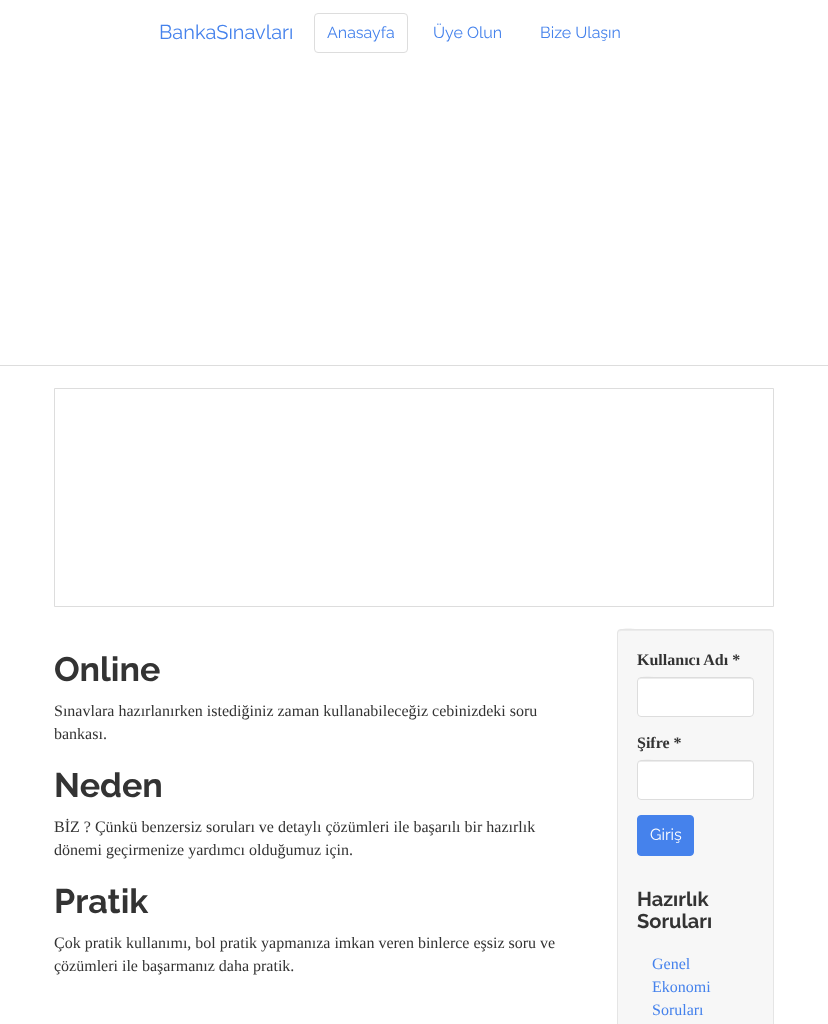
<svg xmlns="http://www.w3.org/2000/svg" width="828" height="1024" viewBox="0 0 828 1024">
  <rect width="100%" height="100%" fill="#fff"/>
  <path d="M0 365h828v1H0z" fill="#ddd"/>
  <rect x="314.5" y="13.5" width="93" height="39" rx="3.5" fill="none" stroke="#ddd"/>
  <path d="M54.5 388.5h719v218H54.5z" fill="none" stroke="#ddd"/>
  <rect x="617" y="629" width="157" height="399" rx="4" fill="#f7f7f7"/>
  <path d="M621 631H770C772 631 773 632 773 634C773 632 773 631 771 630H646C638 630 618 625 618 634C618 632 619 631 621 631Z" fill="#ebebeb"/>
  <rect x="617.5" y="629.5" width="156" height="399" rx="3.5" fill="none" stroke="#e5e5e5"/>
  <rect x="637" y="677" width="117" height="40" rx="4" fill="#fff"/>
  <path d="M641 679H750C752 679 753 680 753 682C753 680 752 678 750 678H659C658 678 638 673 638 682C638 680 639 679 641 679Z" fill="#ececec"/>
  <rect x="637.5" y="677.5" width="116" height="39" rx="3.5" fill="none" stroke="#ddd"/>
  <rect x="637" y="760" width="117" height="40" rx="4" fill="#fff"/>
  <path d="M641 762H750C752 762 753 763 753 765C753 763 752 761 750 761H659C658 761 638 756 638 765C638 763 639 762 641 762Z" fill="#ececec"/>
  <rect x="637.5" y="760.5" width="116" height="39" rx="3.5" fill="none" stroke="#ddd"/>
  <rect x="637.5" y="815.5" width="56" height="40" rx="3.5" fill="#4582ec" stroke="#4582ec"/>
  <text x="159" y="39" font-family="Raleway" font-size="20" fill="#4582ec">BankaSınavları</text>
  <g font-family="Raleway" font-size="16" fill="#4582ec">
    <text x="327" y="38">Anasayfa</text>
    <text x="433" y="38">Üye Olun</text>
    <text x="540" y="38">Bize Ulaşın</text>
  </g>
  <text x="54" y="681" font-family="Raleway" font-size="34" font-weight="bold" fill="#333">Online</text>
  <g font-family="Liberation Serif" font-size="16" fill="#333">
    <text x="54" y="716">Sınavlara hazırlanırken istediğiniz zaman kullanabileceğiz cebinizdeki soru</text>
    <text x="54" y="739">bankası.</text>
  </g>
  <text x="54" y="797" font-family="Raleway" font-size="34" font-weight="bold" fill="#333">Neden</text>
  <g font-family="Liberation Serif" font-size="16" fill="#333">
    <text x="54" y="832">BİZ ? Çünkü benzersiz soruları ve detaylı çözümleri ile başarılı bir hazırlık</text>
    <text x="54" y="855">dönemi geçirmenize yardımcı olduğumuz için.</text>
  </g>
  <text x="54" y="913" font-family="Raleway" font-size="34" font-weight="bold" fill="#333">Pratik</text>
  <g font-family="Liberation Serif" font-size="16" fill="#333">
    <text x="54" y="948">Çok pratik kullanımı, bol pratik yapmanıza imkan veren binlerce eşsiz soru ve</text>
    <text x="54" y="971">çözümleri ile başarmanız daha pratik.</text>
  </g>
  <g font-family="Liberation Serif" font-size="16" font-weight="bold" fill="#333">
    <text x="637" y="665">Kullanıcı Adı *</text>
    <text x="637" y="748">Şifre *</text>
  </g>
  <text x="650" y="840" font-family="Raleway" font-size="16" fill="#fff">Giriş</text>
  <g font-family="Raleway" font-size="20" font-weight="bold" fill="#333">
    <text x="637" y="906">Hazırlık</text>
    <text x="637" y="928">Soruları</text>
  </g>
  <g font-family="Liberation Serif" font-size="16" fill="#4582ec">
    <text x="652" y="969">Genel</text>
    <text x="652" y="992">Ekonomi</text>
    <text x="652" y="1015">Soruları</text>
  </g>
</svg>
